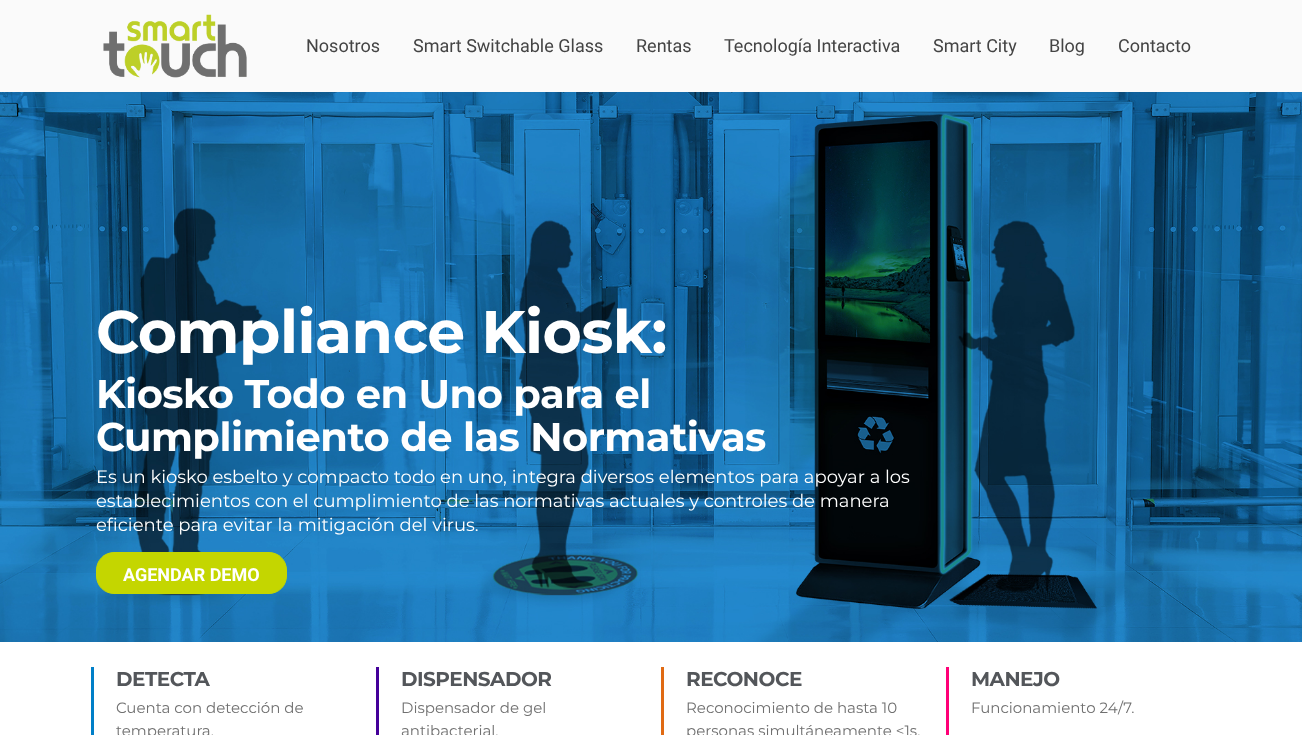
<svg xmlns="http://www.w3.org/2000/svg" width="1302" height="735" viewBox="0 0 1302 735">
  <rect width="100%" height="100%" fill="#fff"/>
  <path d="M0 0h1302v92H0z" fill="#fafafa"/>
  <image x="103" y="14" width="144" height="64" href="img/1.png"/>
  <image x="0" y="92" width="1302" height="550" href="img/2.png"/>
  <rect x="96.5" y="552.5" width="190" height="41" rx="17.5" fill="#c4d600" stroke="#c4d600"/>
  <path d="M91 667h3v68H91z" fill="#007fc8"/>
  <path d="M376 667h3v68H376z" fill="#409"/>
  <path d="M661 667h3v68H661z" fill="#e06a13"/>
  <path d="M946 667h3v68H946z" fill="#f07"/>
  <g font-family="Roboto" font-size="18" fill="#444">
    <text x="306" y="52">Nosotros</text>
    <text x="413" y="52">Smart Switchable Glass</text>
    <text x="636" y="52">Rentas</text>
    <text x="724" y="52">Tecnología Interactiva</text>
    <text x="933" y="52">Smart City</text>
    <text x="1049" y="52">Blog</text>
    <text x="1118" y="52">Contacto</text>
  </g>
  <text x="96" y="353" font-family="Montserrat" font-size="60" font-weight="bold" letter-spacing="-0.5" fill="#fff">Compliance Kiosk:</text>
  <g font-family="Montserrat" font-size="40" font-weight="bold" letter-spacing="-0.5" fill="#fff">
    <text x="96" y="408">Kiosko Todo en Uno para el</text>
    <text x="96" y="451">Cumplimiento de las Normativas</text>
  </g>
  <g font-family="Montserrat" font-size="18" fill="#fff">
    <text x="96" y="483">Es un kiosko esbelto y compacto todo en uno, integra diversos elementos para apoyar a los</text>
    <text x="96" y="507">establecimientos con el cumplimiento de las normativas actuales y controles de manera</text>
    <text x="96" y="531">eficiente para evitar la mitigación del virus.</text>
  </g>
  <text x="123" y="581" font-family="Roboto" font-size="18" font-weight="bold" fill="#fff">AGENDAR DEMO</text>
  <text x="116" y="686" font-family="Montserrat" font-size="20" font-weight="bold" letter-spacing="-0.5" fill="#53565a">DETECTA</text>
  <g font-family="Montserrat" font-size="15" fill="#707070">
    <text x="116" y="713">Cuenta con detección de</text>
    <text x="116" y="736">temperatura.</text>
  </g>
  <text x="401" y="686" font-family="Montserrat" font-size="20" font-weight="bold" letter-spacing="-0.5" fill="#53565a">DISPENSADOR</text>
  <g font-family="Montserrat" font-size="15" fill="#707070">
    <text x="401" y="713">Dispensador de gel</text>
    <text x="401" y="736">antibacterial.</text>
  </g>
  <text x="686" y="686" font-family="Montserrat" font-size="20" font-weight="bold" letter-spacing="-0.5" fill="#53565a">RECONOCE</text>
  <g font-family="Montserrat" font-size="15" fill="#707070">
    <text x="686" y="713">Reconocimiento de hasta 10</text>
    <text x="686" y="736">personas simultáneamente &lt;1s.</text>
  </g>
  <text x="971" y="686" font-family="Montserrat" font-size="20" font-weight="bold" letter-spacing="-0.5" fill="#53565a">MANEJO</text>
  <text x="971" y="713" font-family="Montserrat" font-size="15" fill="#707070">Funcionamiento 24/7.</text>
</svg>
